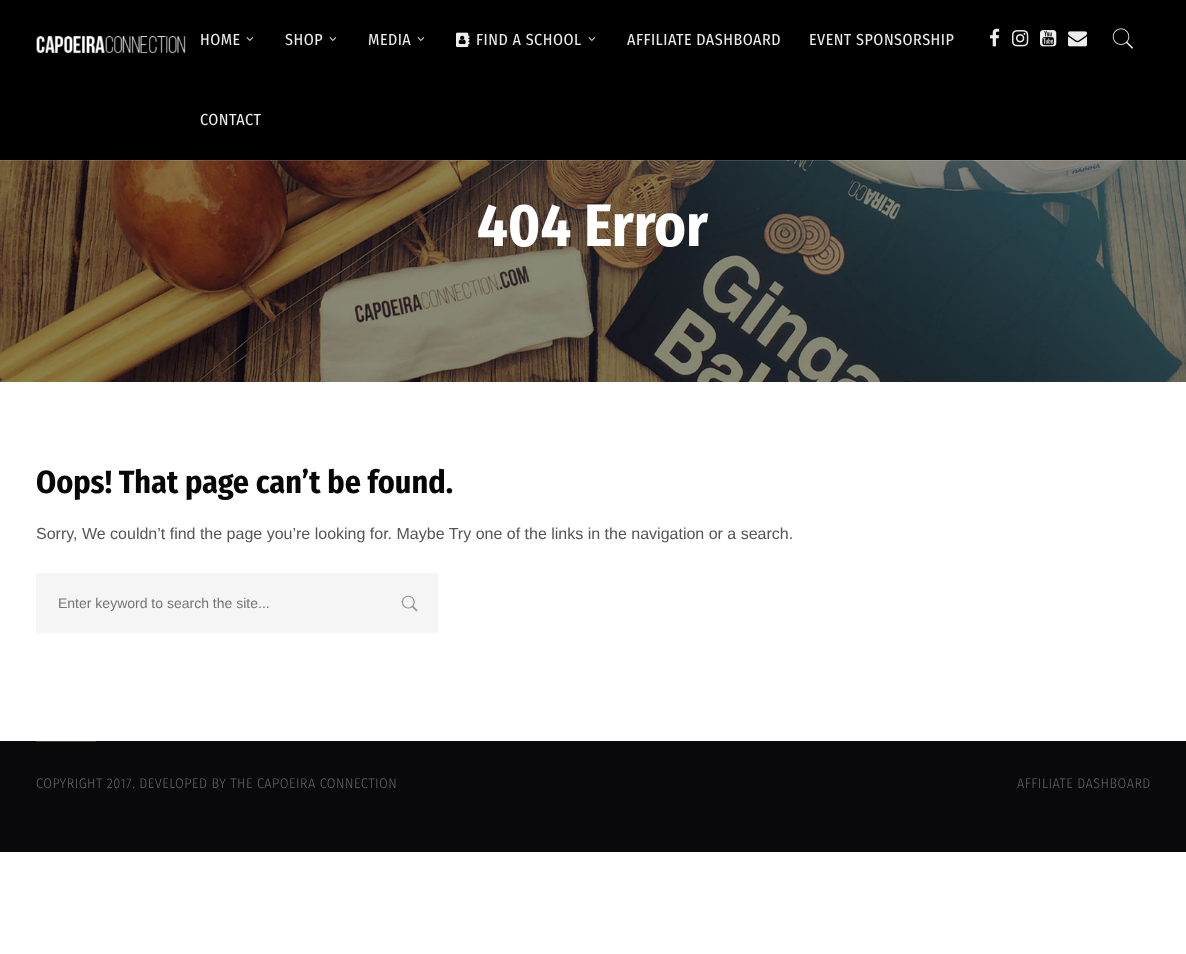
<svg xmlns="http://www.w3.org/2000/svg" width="1186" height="954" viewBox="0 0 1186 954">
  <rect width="100%" height="100%" fill="#fff"/>
  <path d="M0 0h1186v160H0z" fill="#000"/>
  <image x="36" y="36" width="150" height="18" href="img/1.png"/>
  <image x="246" y="37" width="8" height="4" href="img/2.png"/>
  <image x="329" y="37" width="8" height="4" href="img/2.png"/>
  <image x="417" y="37" width="8" height="4" href="img/2.png"/>
  <image x="456" y="32" width="14" height="16" href="img/3.png"/>
  <image x="588" y="37" width="8" height="4" href="img/2.png"/>
  <image x="990" y="28" width="10" height="19" href="img/4.png"/>
  <image x="1012" y="30" width="17" height="17" href="img/5.png"/>
  <image x="1040" y="30" width="17" height="17" href="img/6.png"/>
  <image x="1068" y="31" width="19" height="16" href="img/7.png"/>
  <image x="1112" y="28" width="22" height="21" href="img/8.png"/>
  <image x="0" y="160" width="1186" height="222" href="img/9.png"/>
  <path d="M0 160h1186v1H0z" fill="#ffffff26"/>
  <path d="M36 573h402v60H36z" fill="#f5f5f5"/>
  <image x="401" y="595" width="17" height="17" href="img/10.png"/>
  <path d="M0 741h1186v111H0z" fill="#09090c"/>
  <path d="M36 741h60v1H36z" fill="#3a3a3a"/>
  <g font-family="Fira Sans Condensed" font-size="16" letter-spacing="0.5" fill="#eee">
    <text x="200" y="45">HOME</text>
    <text x="285" y="45">SHOP</text>
    <text x="368" y="45">MEDIA</text>
    <text x="476" y="45">FIND A SCHOOL</text>
    <text x="627" y="45">AFFILIATE DASHBOARD</text>
    <text x="809" y="45">EVENT SPONSORSHIP</text>
    <text x="200" y="125">CONTACT</text>
  </g>
  <text x="477" y="246" font-family="Fira Sans Condensed" font-size="60" font-weight="bold" fill="#fff">404 Error</text>
  <text x="36" y="493" font-family="Fira Sans Condensed" font-size="32" font-weight="bold" fill="#070707">Oops! That page can’t be found.</text>
  <text x="36" y="539" font-family="Arimo" font-size="16" fill="#555">Sorry, We couldn’t find the page you’re looking for. Maybe Try one of the links in the navigation or a search.</text>
  <text x="58" y="608" font-family="Arimo" font-size="14" fill="#757575">Enter keyword to search the site...</text>
  <g font-family="Fira Sans Condensed" font-size="14" font-weight="300" letter-spacing="0.5" fill="#666">
    <text x="36" y="788">COPYRIGHT 2017. DEVELOPED BY THE CAPOEIRA CONNECTION</text>
    <text x="1017" y="788">AFFILIATE DASHBOARD</text>
  </g>
</svg>
